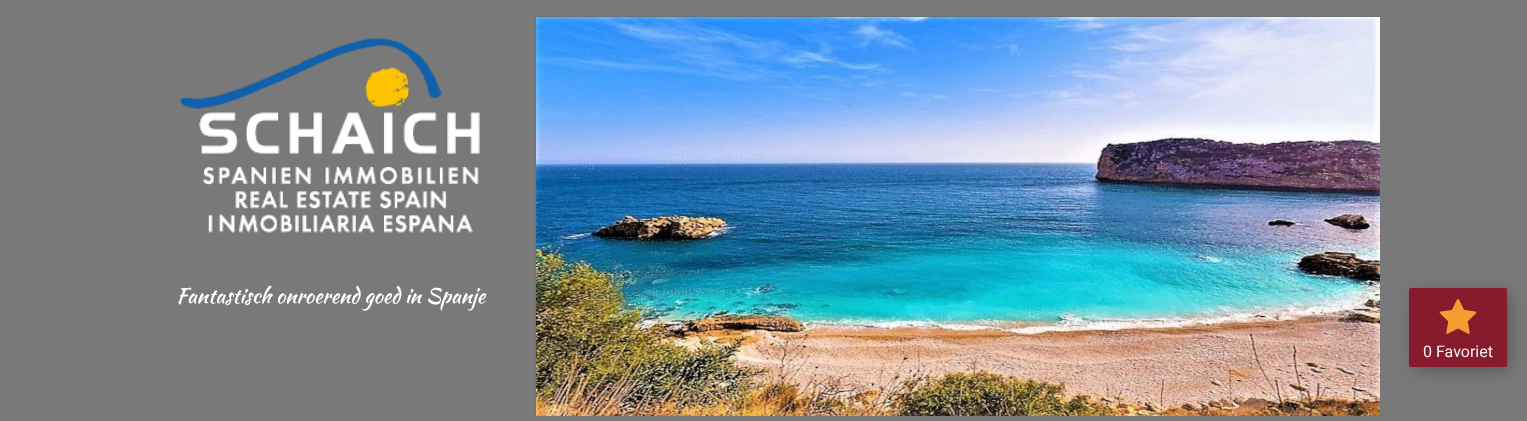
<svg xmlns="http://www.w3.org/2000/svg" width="1527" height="421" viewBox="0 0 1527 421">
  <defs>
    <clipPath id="clip1"><path d="M535 16h845v400H535z"/></clipPath>
  </defs>
  <rect width="100%" height="100%" fill="#797979"/>
  <image x="180" y="38" width="300" height="195" href="img/1.png"/>
  <g clip-path="url(#clip1)">
    <path d="M535.5 16.5h846v401H535.5z" fill="none" stroke="#717171"/>
  </g>
  <image x="536" y="17" width="844" height="399" href="img/2.png"/>
  <path d="M1415 294h94v75H1415z" fill="#0c0c0c59" filter="blur(8.5px)"/>
  <rect x="1409" y="288" width="98" height="79" rx="2" fill="#871b2c"/>
  <image x="1439" y="299" width="38" height="35" href="img/3.png"/>
  <text x="176" y="303" font-family="Kaushan Script" font-size="20.75" fill="#fff">Fantastisch onroerend goed in Spanje</text>
  <text x="1423" y="357" font-family="Roboto" font-size="16" fill="#f2f2f2">0 Favoriet</text>
</svg>
